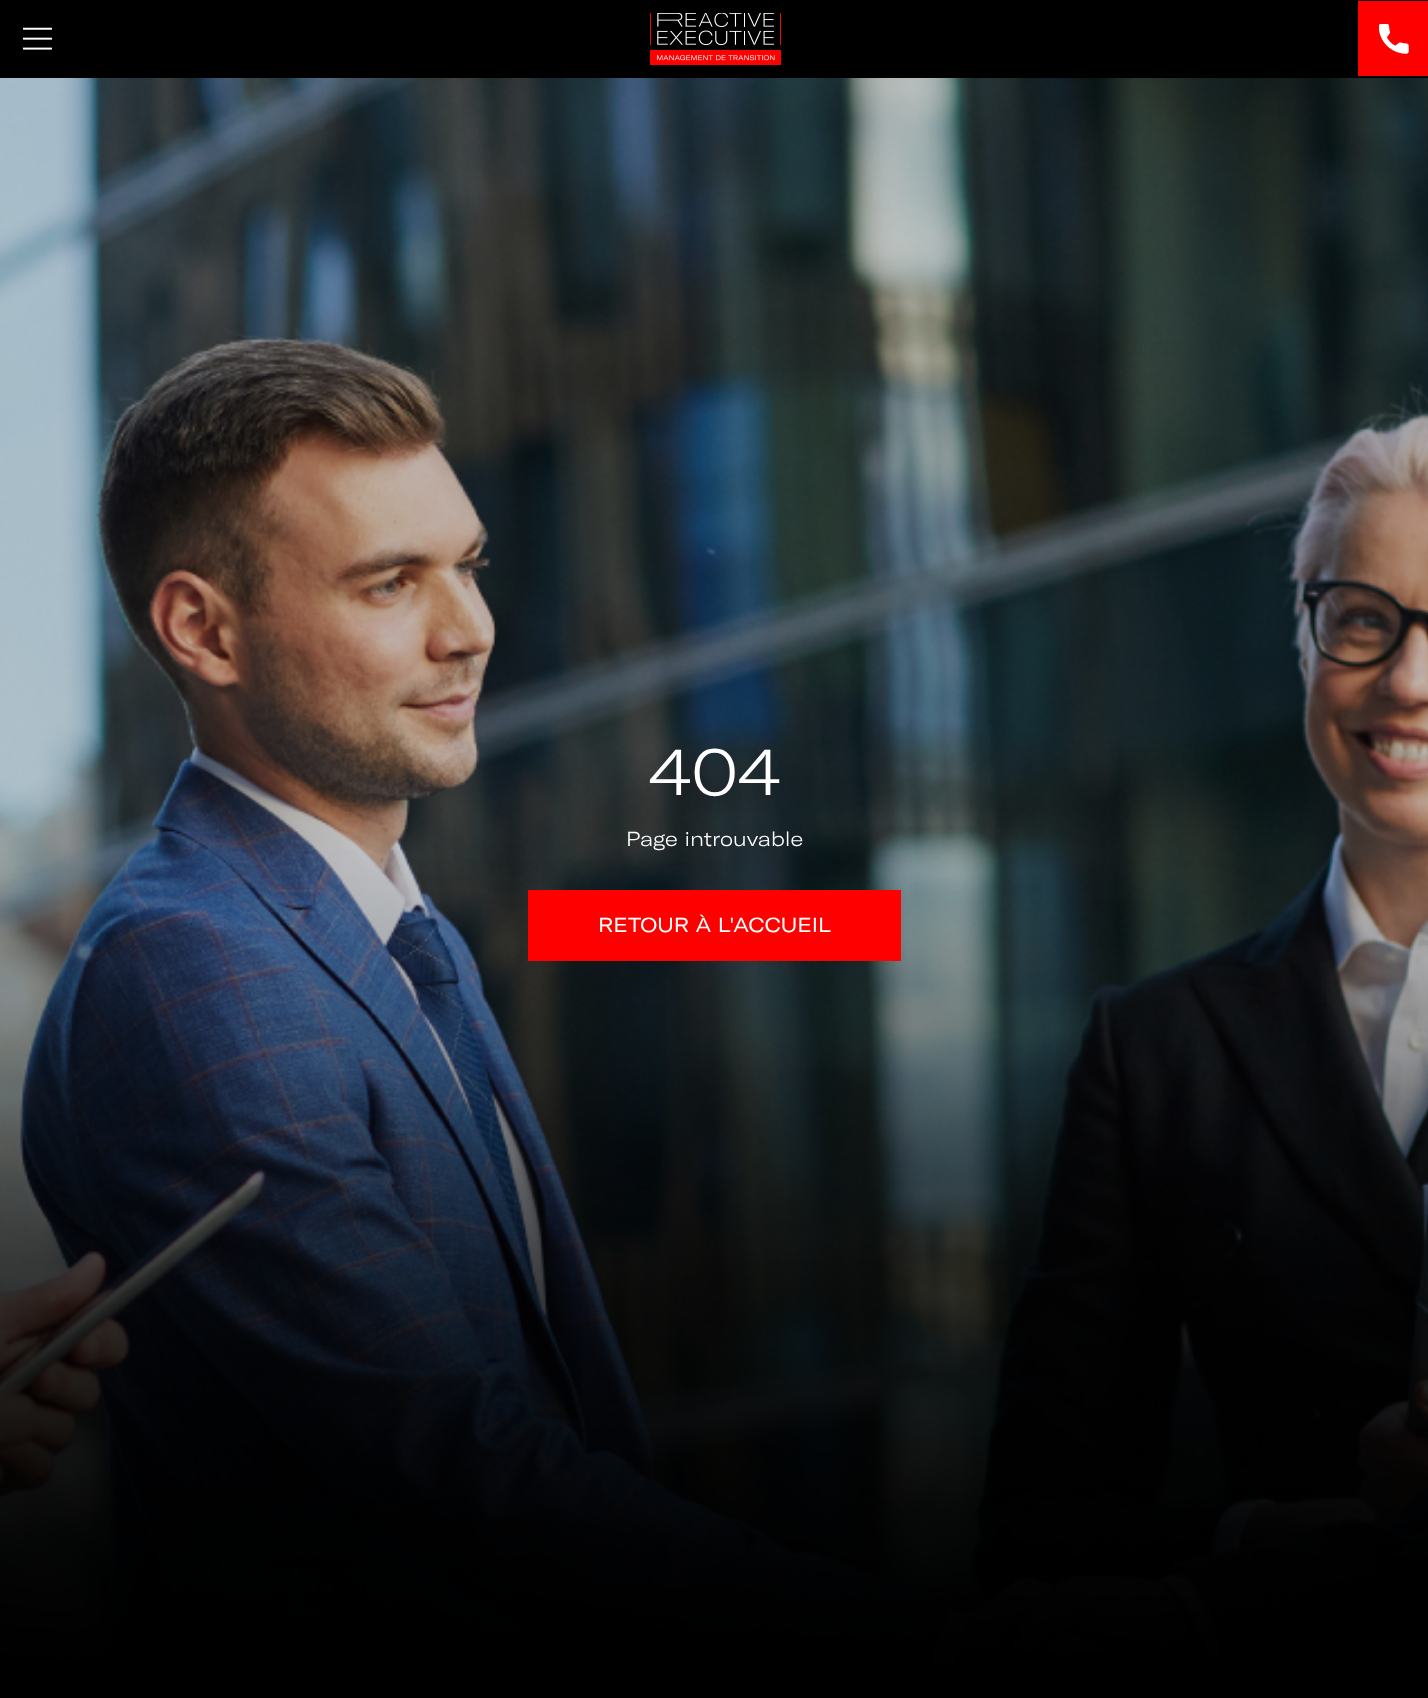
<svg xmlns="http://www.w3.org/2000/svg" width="1428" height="1698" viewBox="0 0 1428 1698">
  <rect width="100%" height="100%" fill="#000"/>
  <image x="23" y="27" width="29" height="23" href="img/1.png"/>
  <image x="650" y="13" width="131" height="52" href="img/2.png"/>
  <image x="1358" y="1" width="70" height="75" href="img/3.png"/>
  <image x="0" y="78" width="1428" height="1607" href="img/4.png"/>
  <path d="M528 890h373v71H528z" fill="#f00"/>
  <text x="649" y="795" font-family="GT America" font-size="65" font-weight="300" fill="#fff">404</text>
  <text x="626" y="846" font-family="GT America" font-size="20" font-weight="300" fill="#fff">Page introuvable</text>
  <text x="598" y="932" font-family="GT America" font-size="20" fill="#fff">RETOUR À L'ACCUEIL</text>
</svg>
